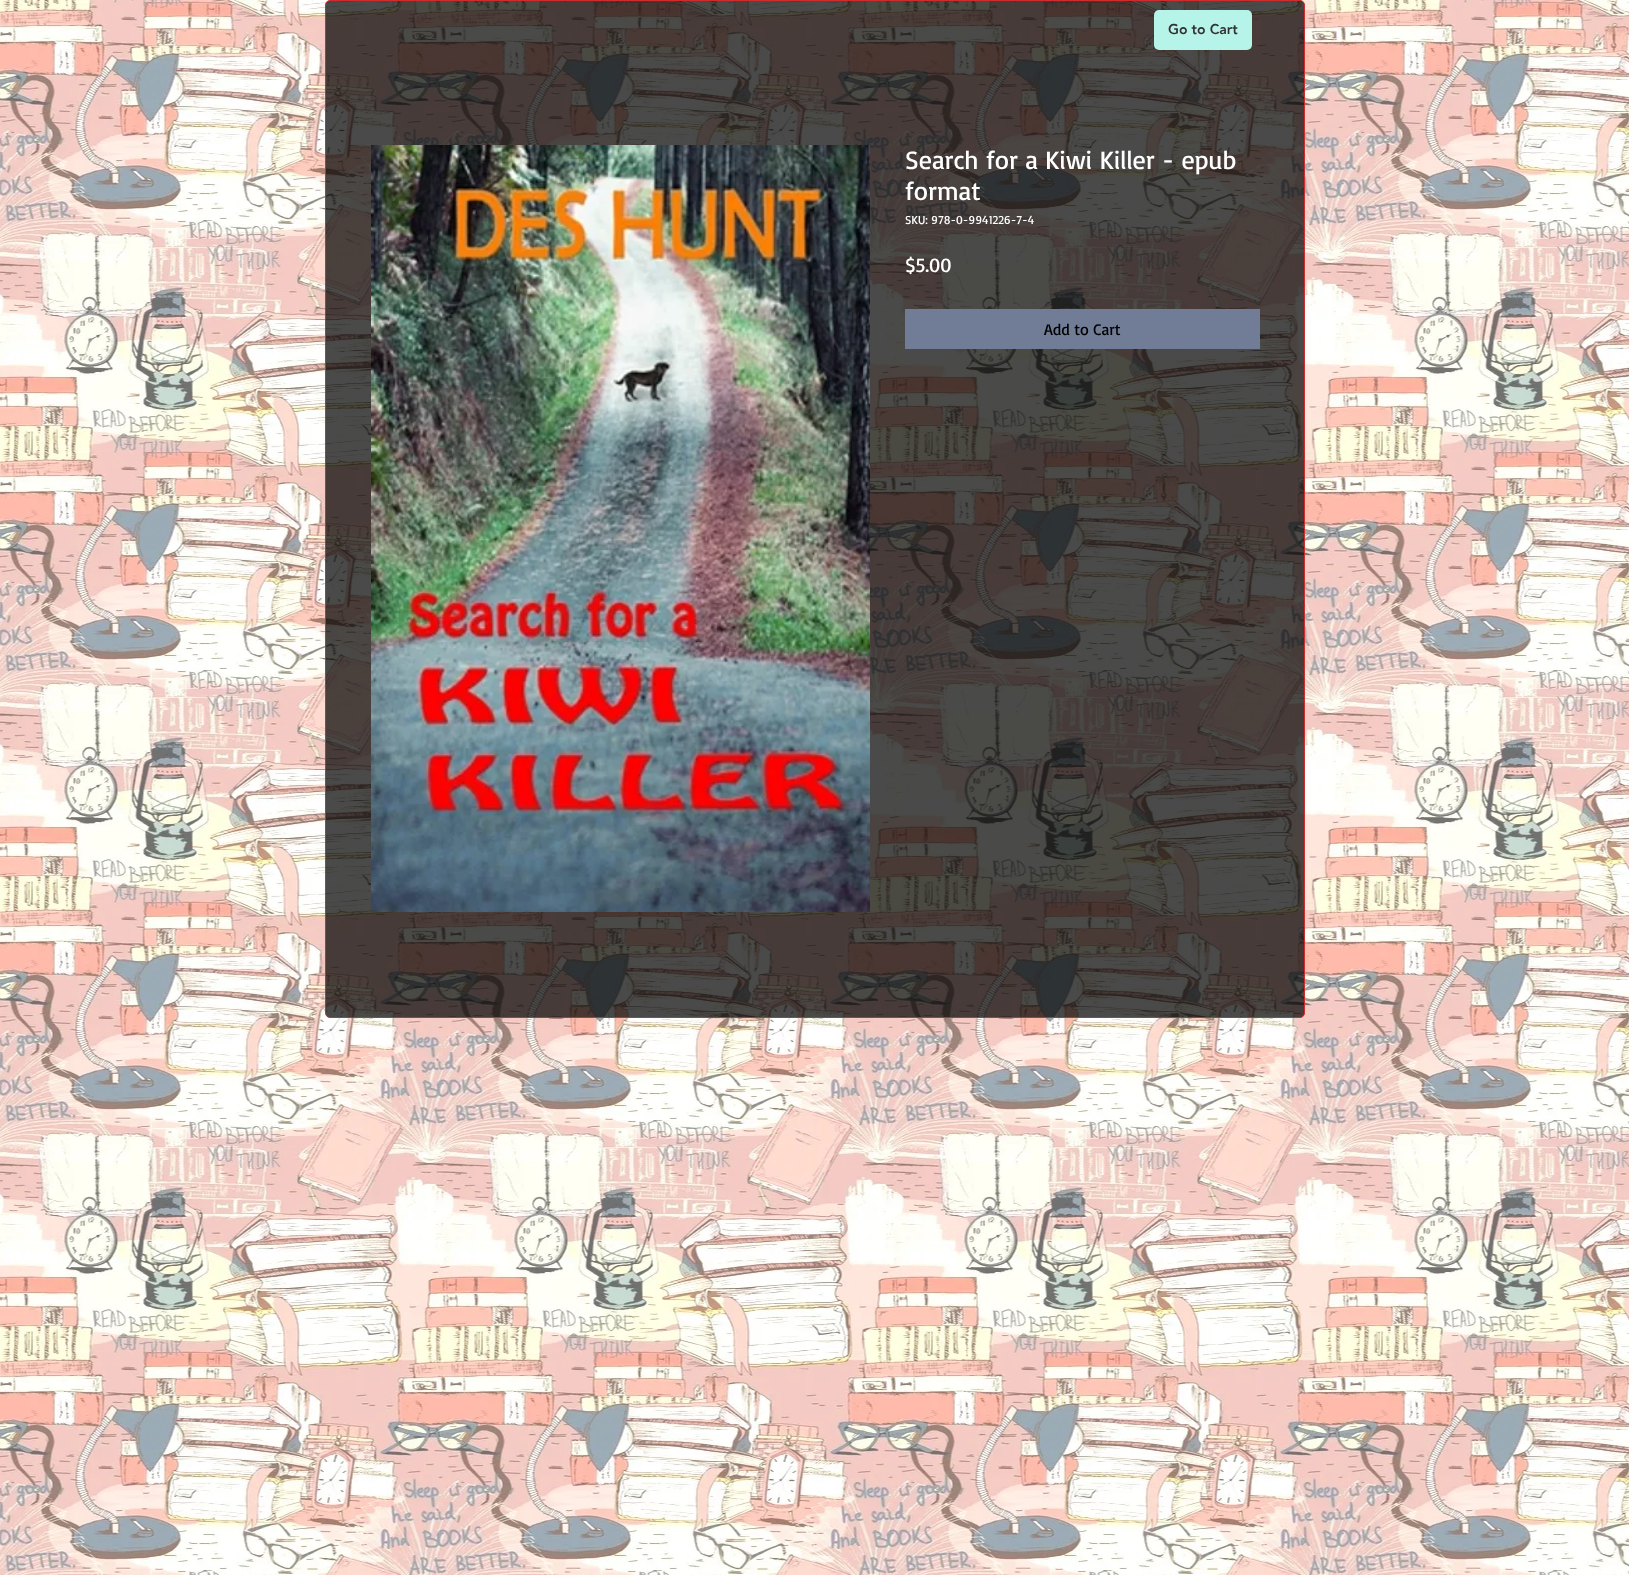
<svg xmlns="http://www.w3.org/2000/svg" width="1629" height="1575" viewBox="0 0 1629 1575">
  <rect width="100%" height="100%" fill="#fff"/>
  <image x="0" y="0" width="1629" height="1575" href="img/1.png"/>
  <rect x="325.5" y="0.5" width="979" height="1017" rx="4.5" fill="#000000b5" stroke="#cf2d2d"/>
  <rect x="1154" y="10" width="98" height="40" rx="5" fill="#b6f3e8"/>
  <image x="371" y="145" width="499" height="767" href="img/2.png"/>
  <path d="M905 309h355v40H905z" fill="#717d97"/>
  <text x="1168" y="34" font-family="'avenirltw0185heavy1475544'" font-size="14" font-weight="900" fill="#323232">Go to Cart</text>
  <g font-family="Basic" font-size="26" fill="#fff">
    <text x="905" y="169">Search for a Kiwi Killer - epub</text>
    <text x="905" y="200">format</text>
  </g>
  <text x="905" y="224" font-family="Basic" font-size="12" fill="#fff">SKU: 978-0-9941226-7-4</text>
  <text x="905" y="272" font-family="Basic" font-size="20" fill="#fff">$5.00</text>
  <text x="1044" y="335" font-family="Basic" font-size="16" fill="#000">Add to Cart</text>
</svg>
